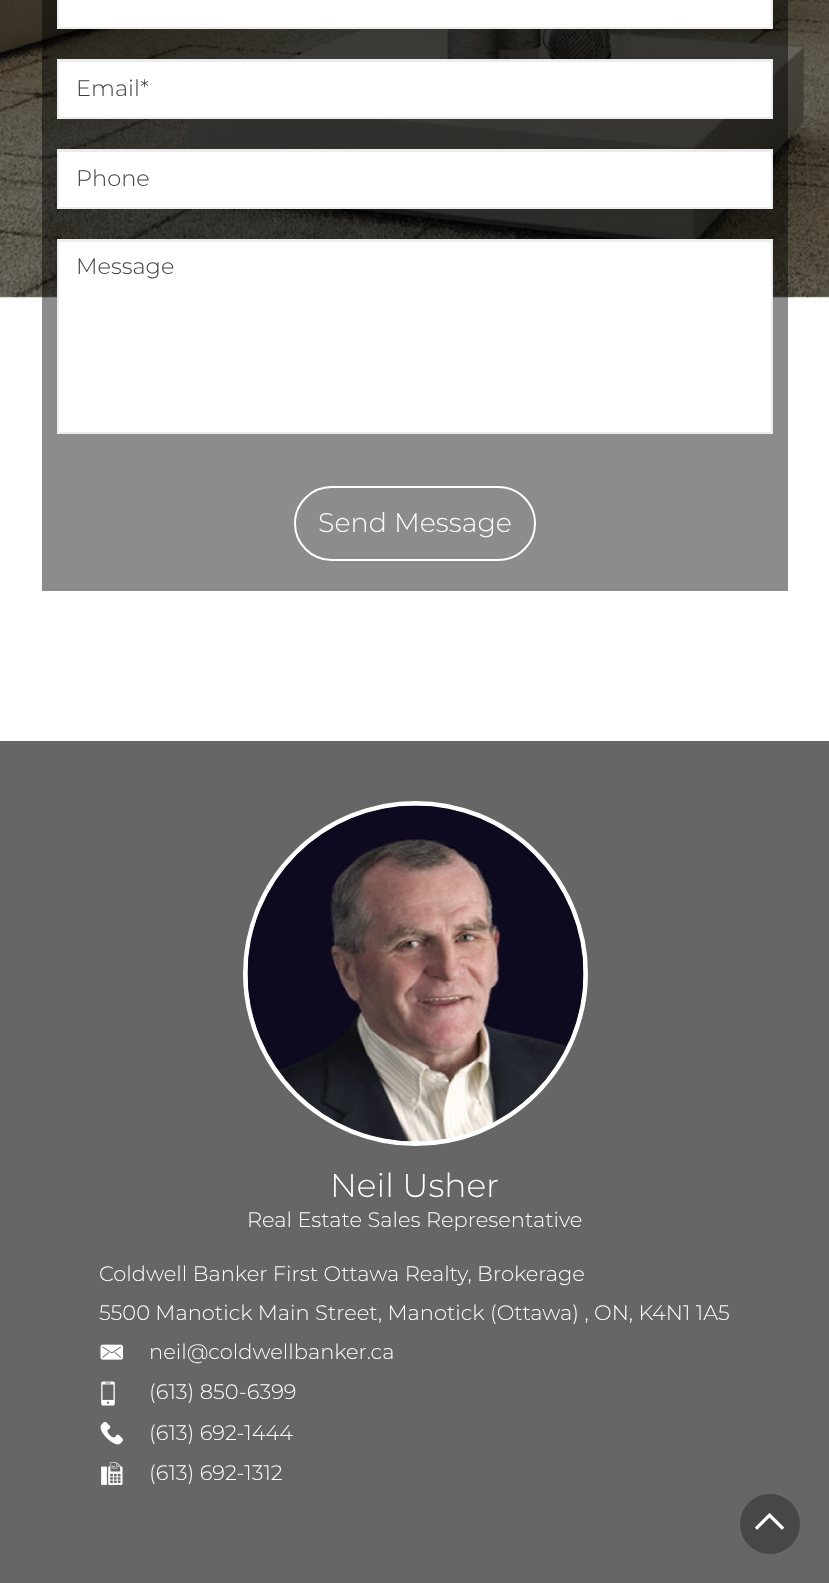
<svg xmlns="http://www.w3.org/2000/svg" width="829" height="1583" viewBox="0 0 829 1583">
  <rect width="100%" height="100%" fill="#fff"/>
  <image x="0" y="0" width="829" height="303" href="img/1.png"/>
  <path d="M42 0h746v591H42z" fill="#00000073"/>
  <path d="M58 -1h714v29H58z" fill="#fff" stroke="#ececec" stroke-width="2"/>
  <path d="M59 62h712v55H59z" fill="#fff"/>
  <path d="M59 61h712v1H59z" fill="#ececec"/>
  <path d="M58 60h714v58H58z" fill="none" stroke="#ececec" stroke-width="2"/>
  <path d="M59 152h712v55H59z" fill="#fff"/>
  <path d="M59 151h712v1H59z" fill="#ececec"/>
  <path d="M58 150h714v58H58z" fill="none" stroke="#ececec" stroke-width="2"/>
  <path d="M59 242h712v190H59z" fill="#fff"/>
  <path d="M59 241h712v1H59z" fill="#ececec"/>
  <path d="M58 240h714v193H58z" fill="none" stroke="#ececec" stroke-width="2"/>
  <rect x="295" y="487" width="240" height="73" rx="36.5" fill="none" stroke="#fff" stroke-width="2"/>
  <path d="M0 741h829v842H0z" fill="#666"/>
  <image x="247" y="805" width="337" height="337" href="img/2.png"/>
  <circle cx="415.5" cy="973.5" r="170" fill="none" stroke="#fff" stroke-width="5"/>
  <image x="247" y="805" width="337" height="337" href="img/3.png"/>
  <image x="100" y="1344" width="23" height="16" href="img/4.png"/>
  <image x="101" y="1381" width="14" height="25" href="img/5.png"/>
  <image x="100" y="1421" width="23" height="24" href="img/6.png"/>
  <image x="101" y="1462" width="22" height="23" href="img/7.png"/>
  <circle cx="770" cy="1524" r="30" fill="#474747"/>
  <image x="755" y="1513" width="29" height="17" href="img/8.png"/>
  <g font-family="Montserrat" font-size="22.5" font-weight="300" fill="#3f3e3e">
    <text x="76" y="96">Email*</text>
    <text x="76" y="186">Phone</text>
    <text x="76" y="274">Message</text>
  </g>
  <text x="318" y="532" font-family="Montserrat" font-size="27" font-weight="300" fill="#fff">Send Message</text>
  <text x="330" y="1197" font-family="Montserrat" font-size="33" font-weight="300" fill="#fff">Neil Usher</text>
  <g font-family="Montserrat" font-size="21" font-weight="300" fill="#fff">
    <text x="247" y="1227">Real Estate Sales Representative</text>
    <text x="99" y="1281">Coldwell Banker First Ottawa Realty, Brokerage</text>
    <text x="99" y="1320">5500 Manotick Main Street, Manotick (Ottawa) , ON, K4N1 1A5</text>
    <text x="149" y="1359">neil@coldwellbanker.ca</text>
    <text x="149" y="1399">(613) 850-6399</text>
    <text x="149" y="1440">(613) 692-1444</text>
    <text x="149" y="1480">(613) 692-1312</text>
  </g>
</svg>
